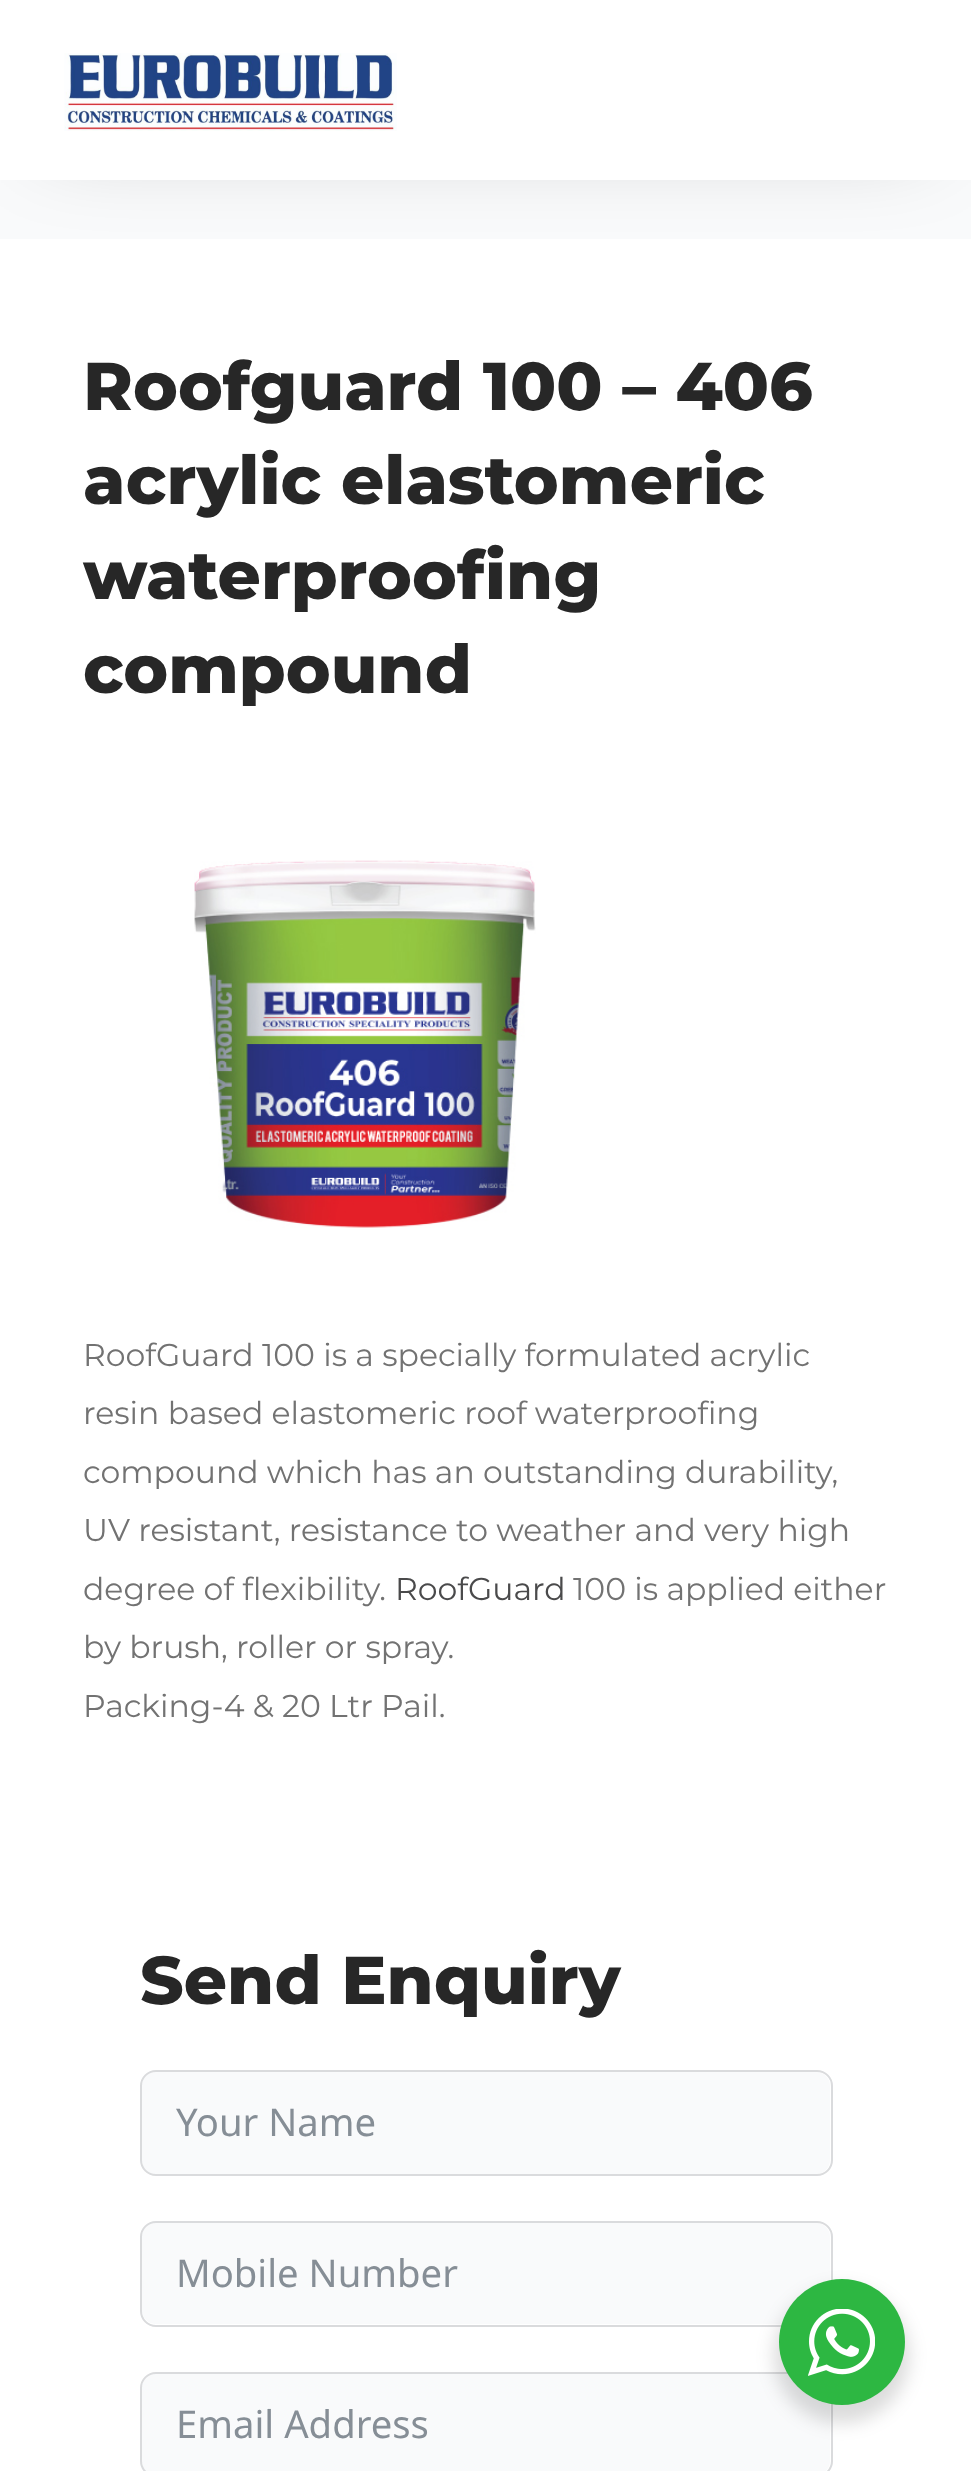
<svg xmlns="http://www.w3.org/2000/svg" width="971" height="2471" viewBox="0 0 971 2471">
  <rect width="100%" height="100%" fill="#f9fafb"/>
  <path d="M0 239h971v2232H0z" fill="#fff"/>
  <path d="M45 45h882v90H45z" fill="#00000042" filter="blur(45px)"/>
  <path d="M0 0h971v180H0z" fill="#fff"/>
  <image x="64" y="53" width="333" height="78" href="img/1.png"/>
  <image x="194" y="860" width="342" height="368" href="img/2.png"/>
  <rect x="142" y="2072" width="688" height="102" rx="14" fill="#f9fafb"/>
  <rect x="141" y="2071" width="691" height="104" rx="15" fill="none" stroke="#dadbdd" stroke-width="2"/>
  <rect x="142" y="2223" width="688" height="101" rx="14" fill="#f9fafb"/>
  <rect x="141" y="2222" width="691" height="104" rx="15" fill="none" stroke="#dadbdd" stroke-width="2"/>
  <rect x="142" y="2374" width="688" height="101" rx="14" fill="#f9fafb"/>
  <rect x="141" y="2373" width="691" height="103" rx="15" fill="none" stroke="#dadbdd" stroke-width="2"/>
  <rect x="774" y="2288" width="135" height="135" rx="67.5" fill="#00000024" filter="blur(9px)"/>
  <circle cx="842" cy="2342" r="63" fill="#2db742"/>
  <image x="808" y="2309" width="67" height="67" href="img/3.png"/>
  <g font-family="Montserrat" font-size="67.5" font-weight="800" fill="#272727">
    <text x="83" y="410">Roofguard 100 – 406</text>
    <text x="83" y="504">acrylic elastomeric</text>
    <text x="83" y="599">waterproofing</text>
    <text x="83" y="693">compound</text>
  </g>
  <g font-family="Montserrat" font-size="31.5" fill="#727272">
    <text x="83" y="1366">RoofGuard 100 is a specially formulated acrylic</text>
    <text x="83" y="1424">resin based elastomeric roof waterproofing</text>
    <text x="83" y="1483">compound which has an outstanding durability,</text>
    <text x="83" y="1541">UV resistant, resistance to weather and very high</text>
    <text x="83" y="1600">degree of flexibility.</text>
  </g>
  <text x="395" y="1600" font-family="Montserrat" font-size="31.5" fill="#4a4a4b">RoofGuard</text>
  <g font-family="Montserrat" font-size="31.5" fill="#727272">
    <text x="573" y="1600">100 is applied either</text>
    <text x="83" y="1658">by brush, roller or spray.</text>
    <text x="83" y="1717">Packing-4 &amp; 20 Ltr Pail.</text>
  </g>
  <text x="140" y="2004" font-family="Montserrat" font-size="67.5" font-weight="800" fill="#272727">Send Enquiry</text>
  <g font-family="Noto Sans" font-size="38.25" fill="#868e96">
    <text x="176" y="2136">Your Name</text>
    <text x="176" y="2287">Mobile Number</text>
    <text x="176" y="2438">Email Address</text>
  </g>
</svg>
